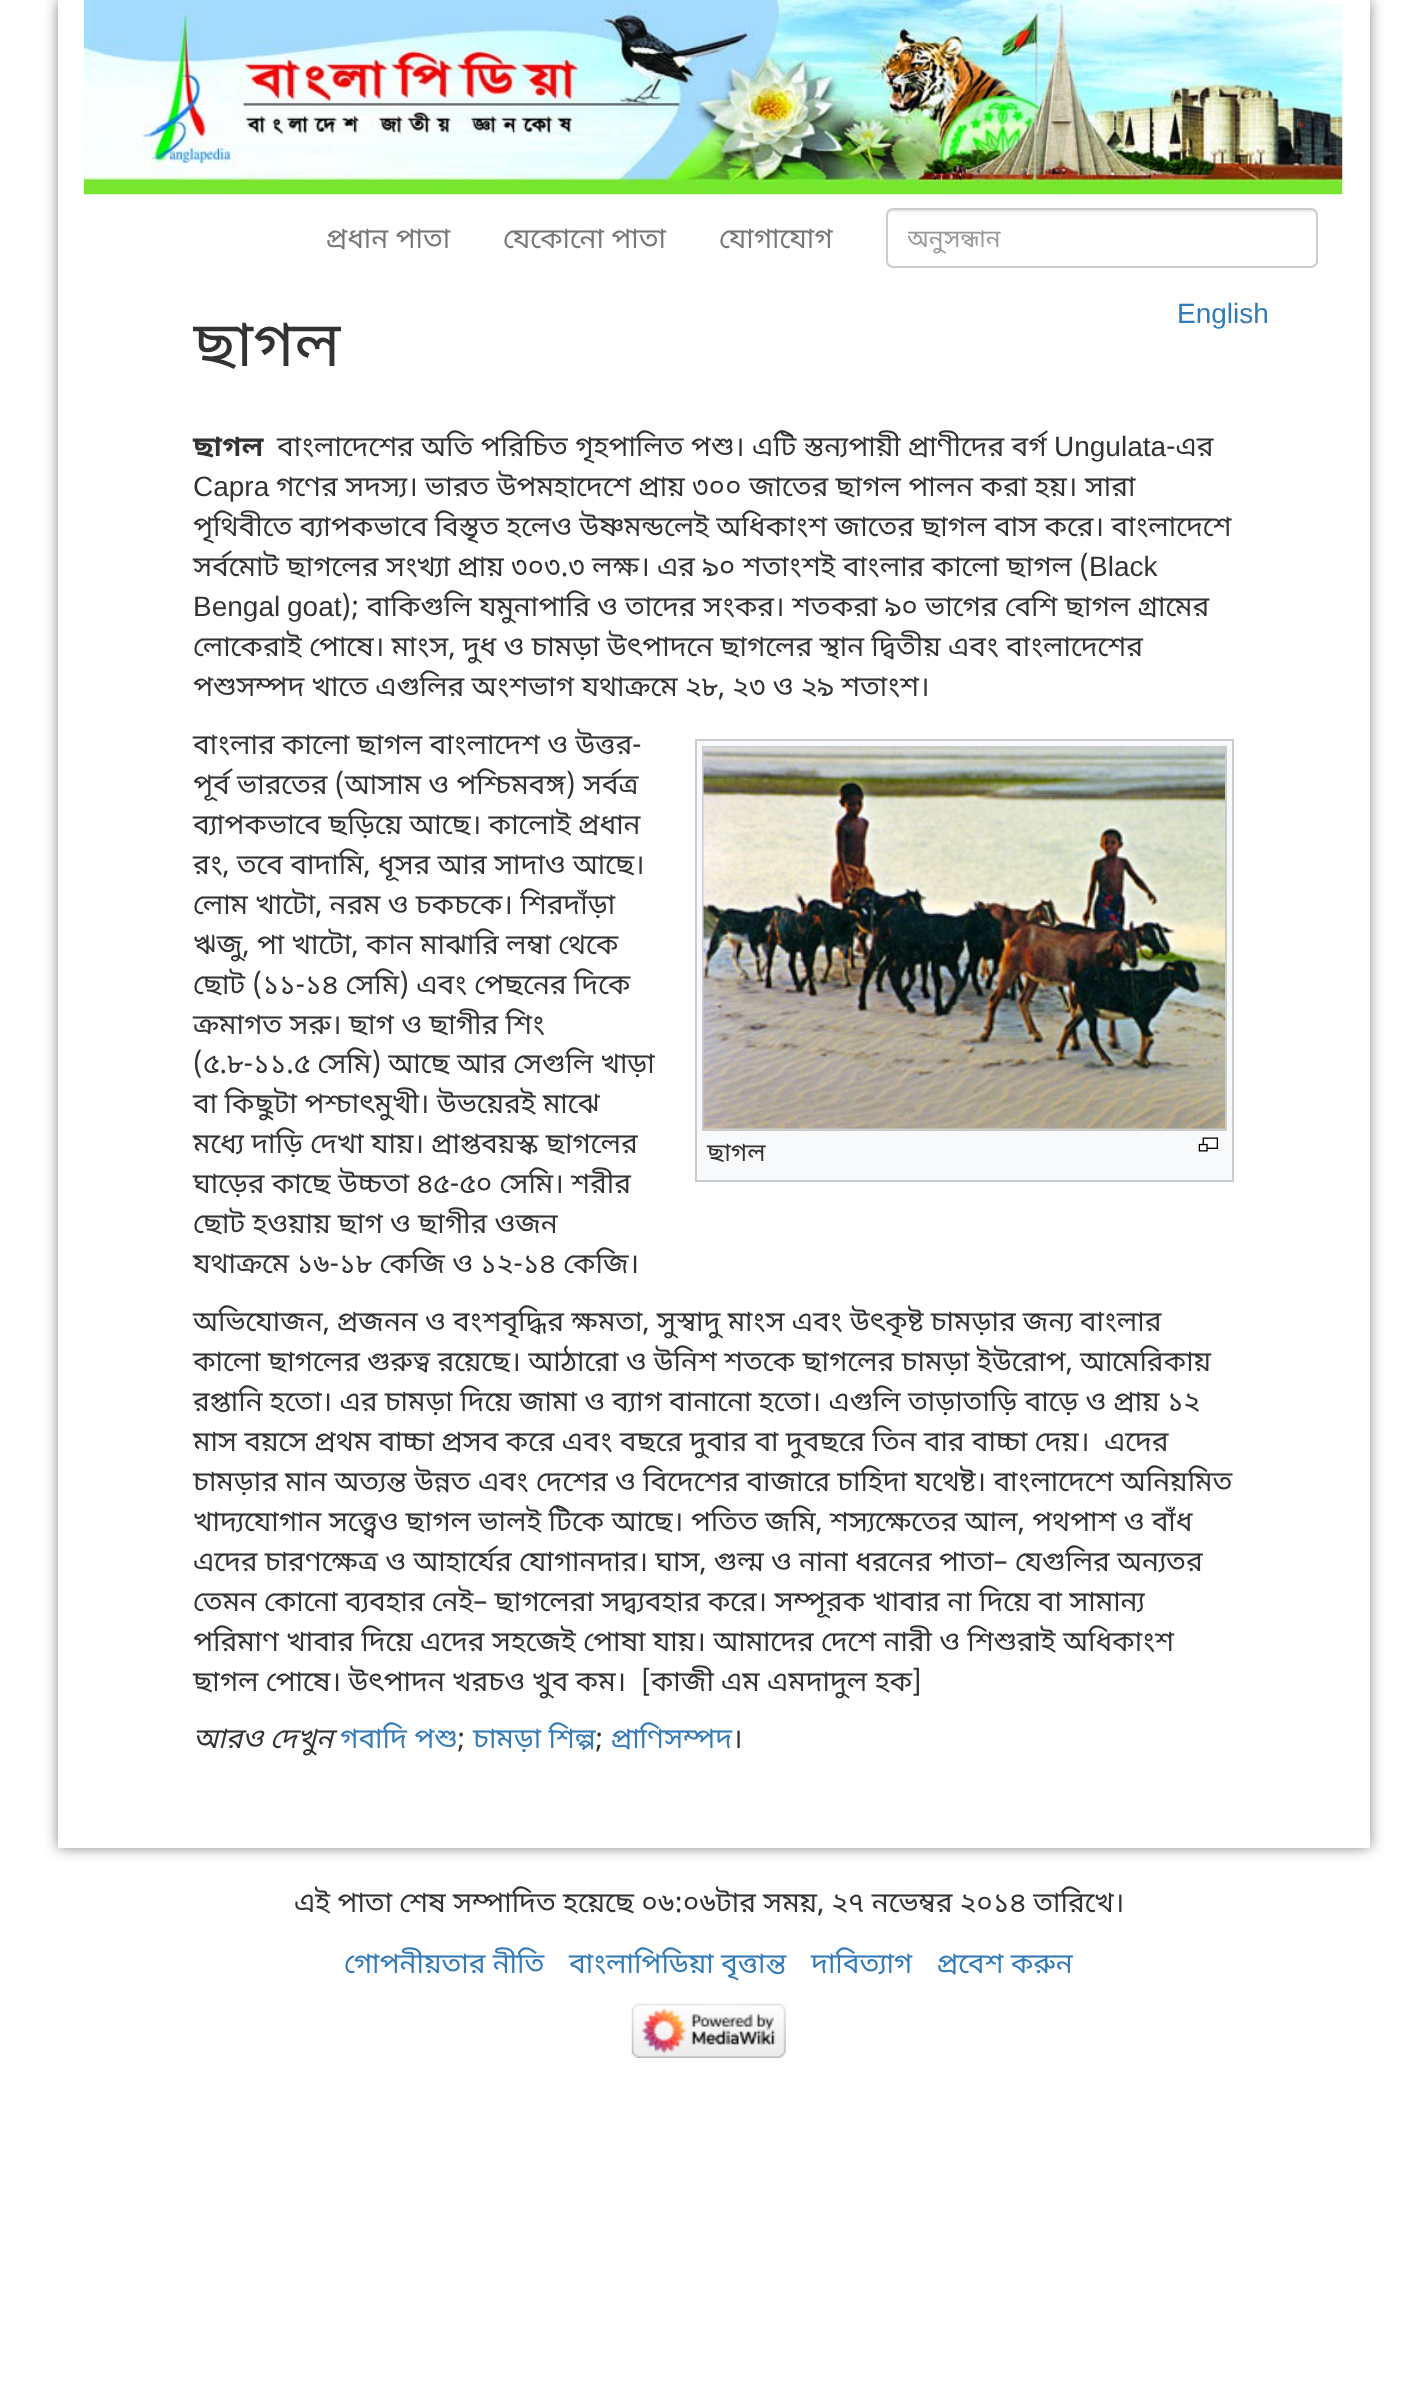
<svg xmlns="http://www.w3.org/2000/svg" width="1425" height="2408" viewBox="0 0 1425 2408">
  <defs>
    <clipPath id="clip1"><path d="M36 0H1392V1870H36ZM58 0H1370V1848H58Z" clip-rule="evenodd"/></clipPath>
    <clipPath id="clip2"><path d="M908 221h380v33H908z"/></clipPath>
    <clipPath id="clip3"><path d="M193 292h822v102H193z"/></clipPath>
  </defs>
  <rect width="100%" height="100%" fill="#fff"/>
  <g clip-path="url(#clip1)">
    <path d="M58 0h1312v1848H58z" fill="#888" filter="blur(7px)"/>
  </g>
  <image x="84" y="0" width="1259" height="195" href="img/1.png"/>
  <path d="M892 212H1311C1314 212 1316 214 1316 217C1316 214 1315 210 1311 210H892C888 210 887 214 887 217C887 214 890 212 892 212Z" fill="#ececec"/>
  <rect x="887" y="209" width="430" height="58" rx="6" fill="none" stroke="#ccc" stroke-width="2"/>
  <path d="M697 741h535v439H697z" fill="#f8f9fa"/>
  <path d="M695 739h539v2H695z" fill="#c8ccd1"/>
  <path d="M695 1180h539v2H695z" fill="#c8ccd1"/>
  <path d="M1232 739h2v442H1232z" fill="#c8ccd1"/>
  <path d="M695 739h2v442H695z" fill="#c8ccd1"/>
  <path d="M703 747h523v383H703z" fill="none" stroke="#c8ccd1" stroke-width="2"/>
  <image x="703" y="747" width="522" height="382" href="img/2.png"/>
  <image x="1198" y="1137" width="20" height="15" href="img/3.png"/>
  <image x="631" y="2003" width="155" height="55" href="img/4.png"/>
  <g font-family="Noto Sans Bengali UI" font-size="28" fill="#777">
    <text x="326" y="248">প্রধান পাতা</text>
    <text x="503" y="248">যেকোনো পাতা</text>
    <text x="719" y="248">যোগাযোগ</text>
  </g>
  <g clip-path="url(#clip2)">
    <text x="907" y="247" font-family="Noto Sans Bengali UI" font-size="24.5" fill="#999">অনুসন্ধান</text>
  </g>
  <text x="1177" y="323" font-family="Liberation Sans" font-size="28" fill="#337ab7">English</text>
  <g clip-path="url(#clip3)">
    <text x="193" y="366" font-family="Noto Sans Bengali UI" font-size="63" fill="#333">ছাগল</text>
  </g>
  <text x="193" y="456" font-family="Noto Sans Bengali UI" font-size="28" font-weight="bold" fill="#333">ছাগল</text>
  <text x="277" y="456" font-family="Noto Sans Bengali UI" font-size="28" fill="#333">বাংলাদেশের অতি পরিচিত গৃহপালিত পশু। এটি স্তন্যপায়ী প্রাণীদের বর্গ</text>
  <text x="1054" y="456" font-family="Liberation Sans" font-size="28" fill="#333">Ungulata</text>
  <text x="1166" y="456" font-family="Noto Sans Bengali UI" font-size="28" fill="#333">-এর</text>
  <text x="193" y="496" font-family="Liberation Sans" font-size="28" fill="#333">Capra</text>
  <g font-family="Noto Sans Bengali UI" font-size="28" fill="#333">
    <text x="276" y="496">গণের সদস্য। ভারত উপমহাদেশে প্রায় ৩০০ জাতের ছাগল পালন করা হয়। সারা</text>
    <text x="193" y="536">পৃথিবীতে ব্যাপকভাবে বিস্তৃত হলেও উষ্ণমন্ডলেই অধিকাংশ জাতের ছাগল বাস করে। বাংলাদেশে</text>
    <text x="193" y="576">সর্বমোট ছাগলের সংখ্যা প্রায় ৩০৩.৩ লক্ষ। এর ৯০ শতাংশই বাংলার কালো ছাগল (</text>
  </g>
  <g font-family="Liberation Sans" font-size="28" fill="#333">
    <text x="1089" y="576">Black</text>
    <text x="193" y="616">Bengal</text>
    <text x="287" y="616">goat</text>
  </g>
  <g font-family="Noto Sans Bengali UI" font-size="28" fill="#333">
    <text x="341" y="616">); বাকিগুলি যমুনাপারি ও তাদের সংকর। শতকরা ৯০ ভাগের বেশি ছাগল গ্রামের</text>
    <text x="193" y="656">লোকেরাই পোষে। মাংস, দুধ ও চামড়া উৎপাদনে ছাগলের স্থান দ্বিতীয় এবং বাংলাদেশের</text>
    <text x="193" y="696">পশুসম্পদ খাতে এগুলির অংশভাগ যথাক্রমে ২৮, ২৩ ও ২৯ শতাংশ।</text>
    <text x="193" y="754">বাংলার কালো ছাগল বাংলাদেশ ও উত্তর-</text>
    <text x="193" y="794">পূর্ব ভারতের (আসাম ও পশ্চিমবঙ্গ) সর্বত্র</text>
    <text x="193" y="834">ব্যাপকভাবে ছড়িয়ে আছে। কালোই প্রধান</text>
    <text x="193" y="874">রং, তবে বাদামি, ধূসর আর সাদাও আছে।</text>
    <text x="193" y="914">লোম খাটো, নরম ও চকচকে। শিরদাঁড়া</text>
    <text x="193" y="954">ঋজু, পা খাটো, কান মাঝারি লম্বা থেকে</text>
    <text x="193" y="994">ছোট (১১-১৪ সেমি) এবং পেছনের দিকে</text>
    <text x="193" y="1034">ক্রমাগত সরু। ছাগ ও ছাগীর শিং</text>
    <text x="193" y="1073">(৫.৮-১১.৫ সেমি) আছে আর সেগুলি খাড়া</text>
    <text x="193" y="1113">বা কিছুটা পশ্চাৎমুখী। উভয়েরই মাঝে</text>
    <text x="193" y="1153">মধ্যে দাড়ি দেখা যায়। প্রাপ্তবয়স্ক ছাগলের</text>
    <text x="193" y="1193">ঘাড়ের কাছে উচ্চতা ৪৫-৫০ সেমি। শরীর</text>
    <text x="193" y="1233">ছোট হওয়ায় ছাগ ও ছাগীর ওজন</text>
    <text x="193" y="1273">যথাক্রমে ১৬-১৮ কেজি ও ১২-১৪ কেজি।</text>
  </g>
  <text x="707" y="1161" font-family="Noto Sans Bengali UI" font-size="25" fill="#333">ছাগল</text>
  <g font-family="Noto Sans Bengali UI" font-size="28" fill="#333">
    <text x="193" y="1331">অভিযোজন, প্রজনন ও বংশবৃদ্ধির ক্ষমতা, সুস্বাদু মাংস এবং উৎকৃষ্ট চামড়ার জন্য বাংলার</text>
    <text x="193" y="1371">কালো ছাগলের গুরুত্ব রয়েছে। আঠারো ও উনিশ শতকে ছাগলের চামড়া ইউরোপ, আমেরিকায়</text>
    <text x="193" y="1411">রপ্তানি হতো। এর চামড়া দিয়ে জামা ও ব্যাগ বানানো হতো। এগুলি তাড়াতাড়ি বাড়ে ও প্রায় ১২</text>
    <text x="193" y="1451" xml:space="preserve">মাস বয়সে প্রথম বাচ্চা প্রসব করে এবং বছরে দুবার বা দুবছরে তিন বার বাচ্চা দেয়।  এদের</text>
    <text x="193" y="1491">চামড়ার মান অত্যন্ত উন্নত এবং দেশের ও বিদেশের বাজারে চাহিদা যথেষ্ট। বাংলাদেশে অনিয়মিত</text>
    <text x="193" y="1531">খাদ্যযোগান সত্ত্বেও ছাগল ভালই টিকে আছে। পতিত জমি, শস্যক্ষেতের আল, পথপাশ ও বাঁধ</text>
    <text x="193" y="1571">এদের চারণক্ষেত্র ও আহার্যের যোগানদার। ঘাস, গুল্ম ও নানা ধরনের পাতা– যেগুলির অন্যতর</text>
    <text x="193" y="1611">তেমন কোনো ব্যবহার নেই– ছাগলেরা সদ্ব্যবহার করে। সম্পূরক খাবার না দিয়ে বা সামান্য</text>
    <text x="193" y="1651">পরিমাণ খাবার দিয়ে এদের সহজেই পোষা যায়। আমাদের দেশে নারী ও শিশুরাই অধিকাংশ</text>
    <text x="193" y="1691" xml:space="preserve">ছাগল পোষে। উৎপাদন খরচও খুব কম।  [কাজী এম এমদাদুল হক]</text>
  </g>
  <text x="193" y="1748" font-family="Noto Sans Bengali UI" font-size="28" font-style="italic" fill="#333">আরও দেখুন</text>
  <text x="340" y="1748" font-family="Noto Sans Bengali UI" font-size="28" fill="#337ab7">গবাদি পশু</text>
  <text x="457" y="1748" font-family="Noto Sans Bengali UI" font-size="28" fill="#333">;</text>
  <text x="473" y="1748" font-family="Noto Sans Bengali UI" font-size="28" fill="#337ab7">চামড়া শিল্প</text>
  <text x="595" y="1748" font-family="Noto Sans Bengali UI" font-size="28" fill="#333">;</text>
  <text x="611" y="1748" font-family="Noto Sans Bengali UI" font-size="28" fill="#337ab7">প্রাণিসম্পদ</text>
  <g font-family="Noto Sans Bengali UI" font-size="28" fill="#333">
    <text x="732" y="1748">।</text>
    <text x="294" y="1912">এই পাতা শেষ সম্পাদিত হয়েছে ০৬:০৬টার সময়, ২৭ নভেম্বর ২০১৪ তারিখে।</text>
  </g>
  <g font-family="Noto Sans Bengali UI" font-size="28" fill="#337ab7">
    <text x="344" y="1973">গোপনীয়তার নীতি</text>
    <text x="569" y="1973">বাংলাপিডিয়া বৃত্তান্ত</text>
    <text x="811" y="1973">দাবিত্যাগ</text>
    <text x="937" y="1973">প্রবেশ করুন</text>
  </g>
</svg>
